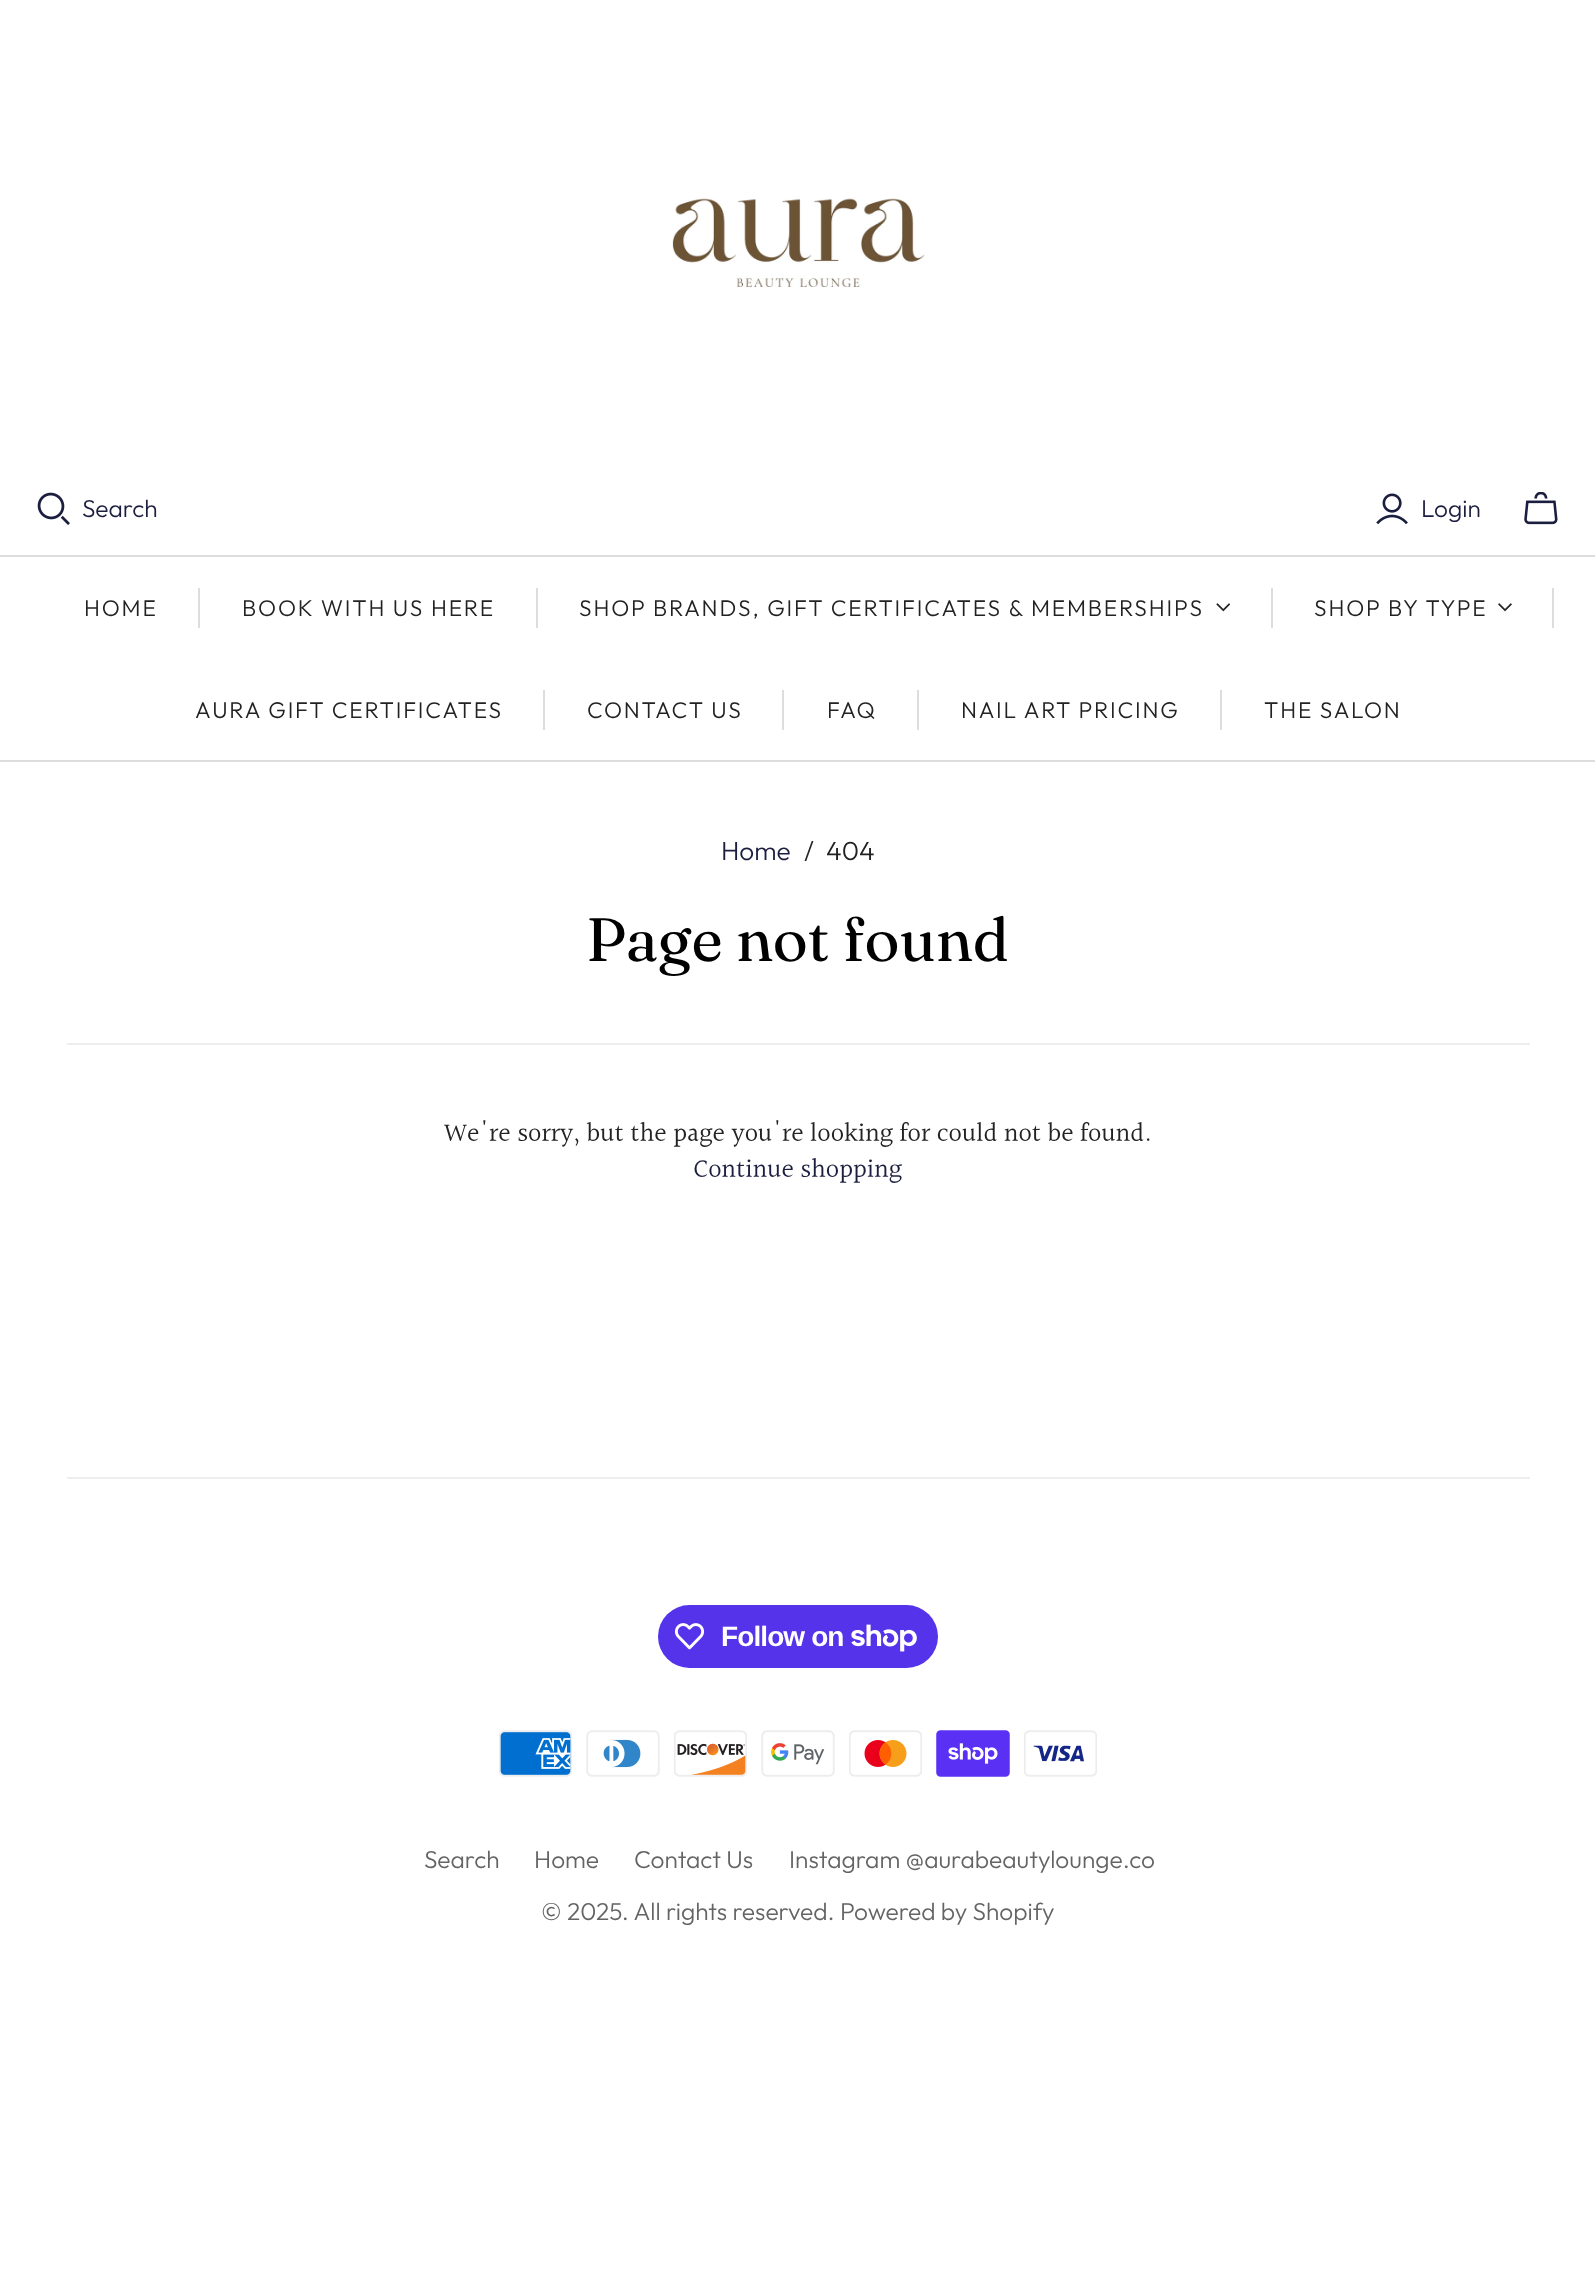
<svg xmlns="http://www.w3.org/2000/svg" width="1595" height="2273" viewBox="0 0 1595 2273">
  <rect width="100%" height="100%" fill="#fff"/>
  <image x="672" y="198" width="253" height="89" href="img/1.png"/>
  <image x="37" y="492" width="33" height="33" href="img/2.png"/>
  <image x="1376" y="493" width="32" height="32" href="img/3.png"/>
  <image x="1524" y="492" width="34" height="33" href="img/4.png"/>
  <path d="M0 555h1595v2H0z" fill="#ddd"/>
  <path d="M0 760h1595v2H0z" fill="#ddd"/>
  <path d="M198 588h2v40H198z" fill="#ddd"/>
  <path d="M536 588h2v40H536z" fill="#ddd"/>
  <image x="1216" y="603" width="14" height="9" href="img/5.png"/>
  <path d="M1271 588h2v40H1271z" fill="#ddd"/>
  <image x="1498" y="603" width="14" height="9" href="img/6.png"/>
  <path d="M1552 588h2v40H1552z" fill="#ddd"/>
  <path d="M543 690h2v40H543z" fill="#ddd"/>
  <path d="M782 690h2v40H782z" fill="#ddd"/>
  <path d="M917 690h2v40H917z" fill="#ddd"/>
  <path d="M1220 690h2v40H1220z" fill="#ddd"/>
  <path d="M67 1043h1463v2H67z" fill="#eee"/>
  <path d="M67 1477h1463v2H67z" fill="#eee"/>
  <rect x="658" y="1605" width="280" height="63" rx="31.5" fill="#5433eb"/>
  <image x="674" y="1623" width="31" height="27" href="img/7.png"/>
  <image x="851" y="1624" width="66" height="28" href="img/8.png"/>
  <image x="499" y="1730" width="73" height="47" href="img/9.png"/>
  <image x="586" y="1730" width="74" height="47" href="img/10.png"/>
  <image x="674" y="1730" width="73" height="47" href="img/11.png"/>
  <image x="761" y="1730" width="74" height="47" href="img/12.png"/>
  <image x="849" y="1730" width="73" height="47" href="img/13.png"/>
  <image x="936" y="1730" width="74" height="47" href="img/14.png"/>
  <image x="1024" y="1730" width="73" height="47" href="img/15.png"/>
  <g font-family="Outfit" font-size="24.5" font-weight="300" fill="#1b1e3f">
    <text x="82" y="517">Search</text>
    <text x="1421" y="517">Login</text>
  </g>
  <g font-family="Outfit" font-size="22.75" font-weight="300" letter-spacing="1.8" fill="#222">
    <text x="84" y="616">HOME</text>
    <text x="242" y="616">BOOK WITH US HERE</text>
    <text x="579" y="616">SHOP BRANDS, GIFT CERTIFICATES &amp; MEMBERSHIPS</text>
    <text x="1314" y="616">SHOP BY TYPE</text>
    <text x="195" y="718">AURA GIFT CERTIFICATES</text>
    <text x="587" y="718">CONTACT US</text>
    <text x="827" y="718">FAQ</text>
    <text x="961" y="718">NAIL ART PRICING</text>
    <text x="1264" y="718">THE SALON</text>
  </g>
  <text x="721" y="860" font-family="Outfit" font-size="26.25" font-weight="300" fill="#1b1e3f">Home</text>
  <g font-family="Outfit" font-size="26.25" font-weight="300" fill="#222">
    <text x="804" y="860">/</text>
    <text x="826" y="860">404</text>
  </g>
  <text x="586" y="961" font-family="Fraunces" font-size="61.25" fill="#000">Page not found</text>
  <text x="444" y="1142" font-family="Halant" font-size="26.25" fill="#222">We're sorry, but the page you're looking for could not be found.</text>
  <text x="693" y="1178" font-family="Halant" font-size="26.25" fill="#1b1e3f">Continue shopping</text>
  <text x="721" y="1646" font-family="Liberation Sans" font-size="28" font-weight="bold" letter-spacing="-0.9" fill="#fff">Follow on</text>
  <g font-family="Outfit" font-size="24.5" font-weight="300" fill="#646464">
    <text x="424" y="1868">Search</text>
    <text x="534" y="1868">Home</text>
    <text x="634" y="1868">Contact Us</text>
    <text x="789" y="1868">Instagram @aurabeautylounge.co</text>
    <text x="541" y="1920">© 2025. All rights reserved. Powered by Shopify</text>
  </g>
</svg>
